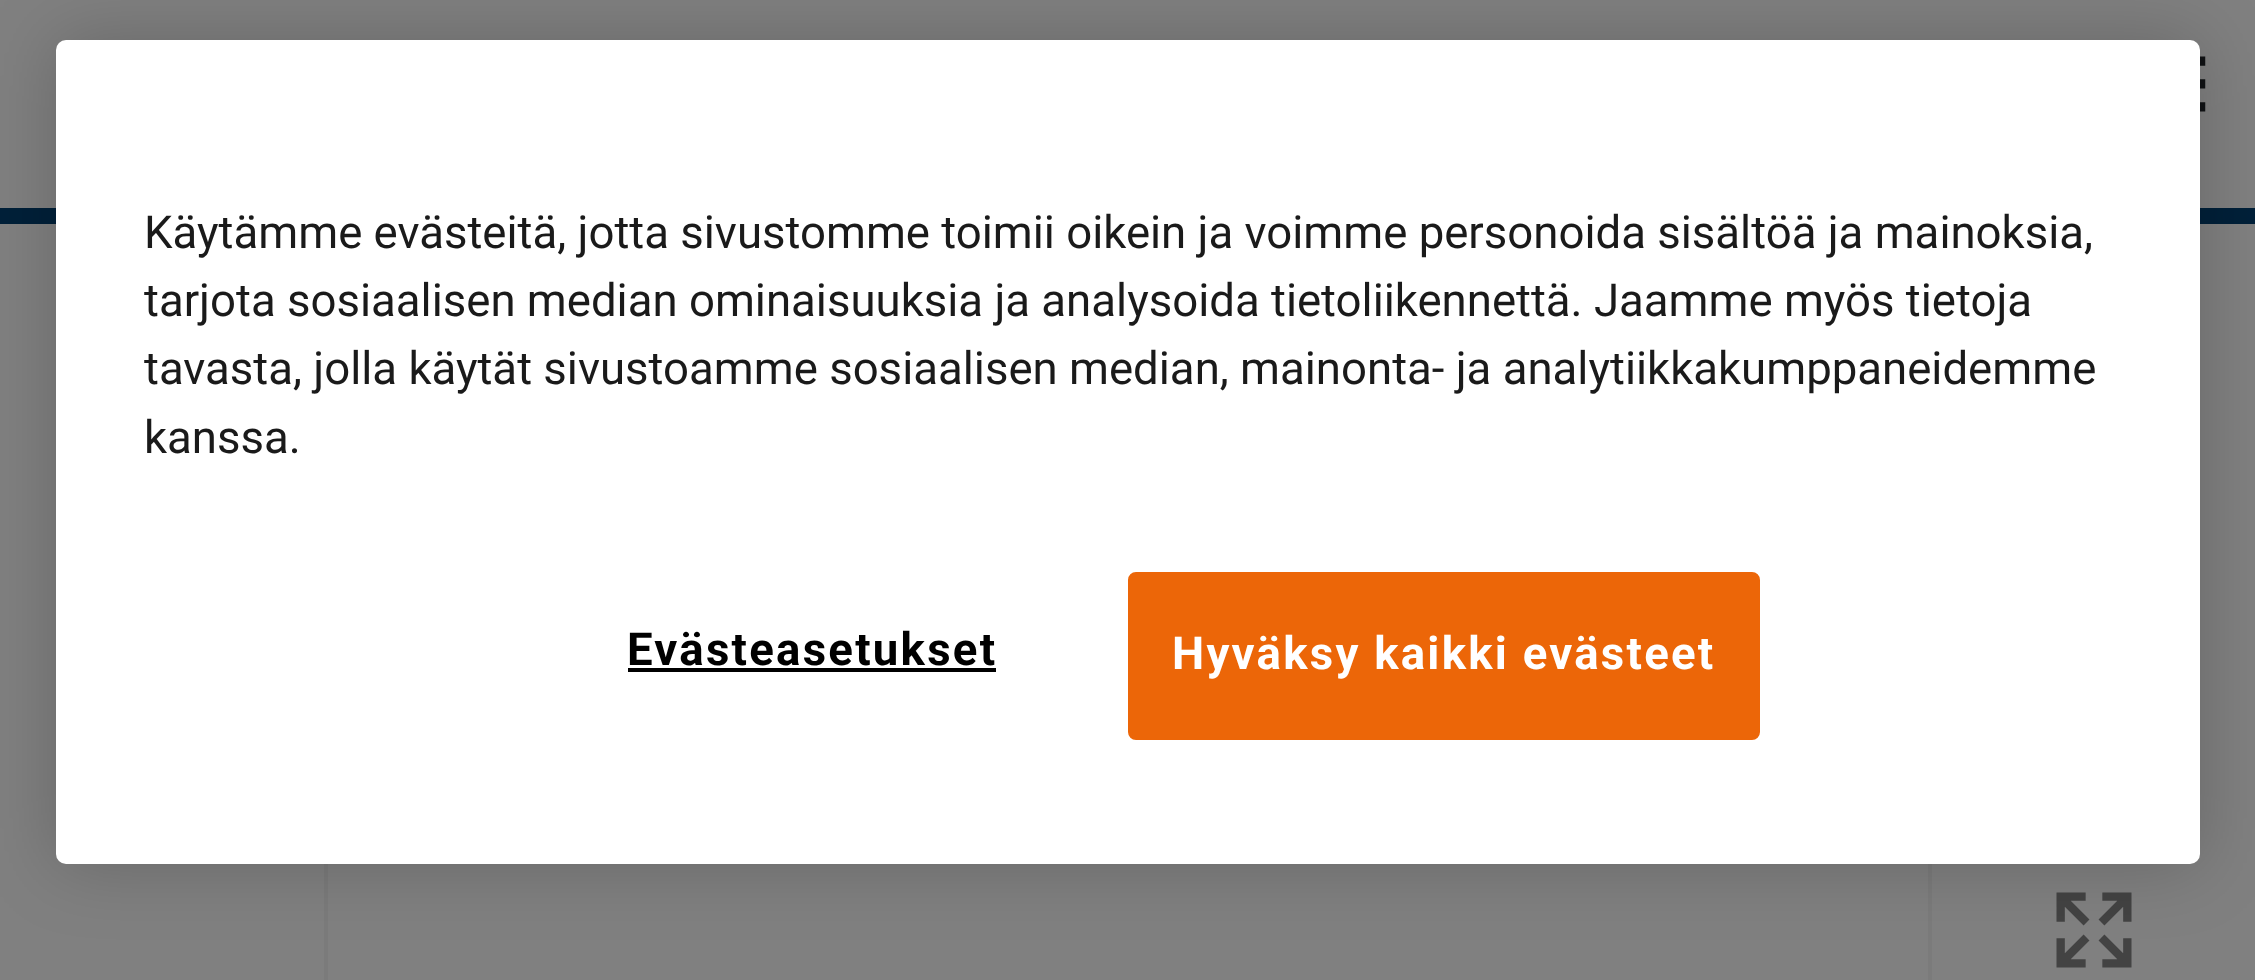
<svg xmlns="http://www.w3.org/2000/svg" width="2255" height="980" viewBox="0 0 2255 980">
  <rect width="100%" height="100%" fill="#808080"/>
  <path d="M0 208h2255v16H0z" fill="#002039"/>
  <image x="2200" y="56" width="6" height="56" href="img/1.png"/>
  <path d="M326 826h1604v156H326z" fill="none" stroke="#7b7b7b" stroke-width="4"/>
  <image x="2056" y="892" width="76" height="76" href="img/2.png"/>
  <rect x="56" y="40" width="2144" height="824" rx="10" fill="#00000033" filter="blur(36px)"/>
  <rect x="56" y="40" width="2144" height="824" rx="10" fill="#fff"/>
  <path d="M628 668h368v4H628z" fill="#000"/>
  <rect x="1130" y="574" width="628" height="164" rx="6" fill="#ec6608" stroke="#ec6608" stroke-width="4"/>
  <g font-family="Roboto" font-size="45.55" fill="#1a1a1a">
    <text x="144" y="248">Käytämme evästeitä, jotta sivustomme toimii oikein ja voimme personoida sisältöä ja mainoksia,</text>
    <text x="144" y="316">tarjota sosiaalisen median ominaisuuksia ja analysoida tietoliikennettä. Jaamme myös tietoja</text>
    <text x="144" y="384">tavasta, jolla käytät sivustoamme sosiaalisen median, mainonta- ja analytiikkakumppaneidemme</text>
    <text x="144" y="453">kanssa.</text>
  </g>
  <text x="627" y="665" font-family="Roboto" font-size="45.55" font-weight="bold" letter-spacing="2.25" fill="#000">Evästeasetukset</text>
  <text x="1172" y="669" font-family="Roboto" font-size="45.55" font-weight="bold" letter-spacing="2.25" fill="#fff">Hyväksy kaikki evästeet</text>
</svg>
